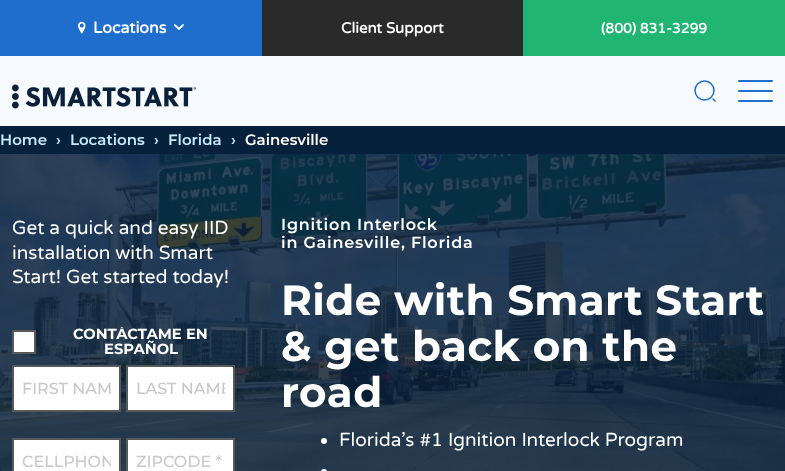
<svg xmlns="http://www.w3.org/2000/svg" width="785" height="471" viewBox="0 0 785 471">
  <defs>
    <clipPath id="clip1"><path d="M12 327h223v30H12z"/></clipPath>
    <clipPath id="clip2"><path d="M136 379h89v19H136z"/></clipPath>
    <clipPath id="clip3"><path d="M22 452h89v19H22z"/></clipPath>
  </defs>
  <rect width="100%" height="100%" fill="#fff"/>
  <path d="M0 0h262v56H0z" fill="#1f6dcd"/>
  <image x="78" y="21" width="8" height="13" href="img/1.png"/>
  <image x="174" y="24" width="10" height="6" href="img/2.png"/>
  <path d="M262 0h261v56H262z" fill="#2a2a2a"/>
  <path d="M523 0h262v56H523z" fill="#20b573"/>
  <path d="M0 56h785v70H0z" fill="#f7faff"/>
  <image x="12" y="84" width="184" height="25" href="img/3.png"/>
  <image x="694" y="80" width="22" height="22" href="img/4.png"/>
  <rect x="738" y="90" width="35" height="2" rx="1" fill="#1f6dcd"/>
  <rect x="738" y="80" width="35" height="2" rx="1" fill="#1f6dcd"/>
  <rect x="738" y="100" width="35" height="2" rx="1" fill="#1f6dcd"/>
  <path d="M0 126h785v28H0z" fill="#07203c"/>
  <image x="0" y="154" width="785" height="317" href="img/5.png"/>
  <circle cx="324" cy="441" r="3" fill="#fff"/>
  <rect x="321" y="469" width="6" height="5" rx="3" fill="#fff"/>
  <path d="M13 331h22v22H13z" fill="#fff" stroke="#595959" stroke-width="2"/>
  <path d="M13 366h107v45H13z" fill="#fff" stroke="#595959" stroke-width="2"/>
  <path d="M127 366h107v45H127z" fill="#fff" stroke="#595959" stroke-width="2"/>
  <path d="M13 439h107v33H13z" fill="#fff" stroke="#595959" stroke-width="2"/>
  <path d="M127 439h107v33H127z" fill="#fff" stroke="#595959" stroke-width="2"/>
  <text x="93" y="33" font-family="Varela Round" font-size="16" font-weight="bold" fill="#fff">Locations</text>
  <text x="341" y="33" font-family="Varela Round" font-size="15" font-weight="bold" fill="#fff">Client Support</text>
  <text x="601" y="33" font-family="Varela Round" font-size="14" font-weight="bold" fill="#fff">(800) 831-3299</text>
  <g font-family="Montserrat" font-size="15" font-weight="600" fill="#c4e9f7">
    <text x="0" y="145">Home</text>
    <text x="56" y="145">›</text>
    <text x="70" y="145">Locations</text>
    <text x="154" y="145">›</text>
    <text x="168" y="145">Florida</text>
    <text x="231" y="145">›</text>
  </g>
  <text x="245" y="145" font-family="Montserrat" font-size="15" font-weight="600" fill="#fff">Gainesville</text>
  <g font-family="Varela Round" font-size="19" fill="#fff">
    <text x="12" y="234">Get a quick and easy IID</text>
    <text x="12" y="259">installation with Smart</text>
    <text x="12" y="283">Start! Get started today!</text>
  </g>
  <g font-family="Montserrat" font-size="16" font-weight="600" letter-spacing="0.8" fill="#fff">
    <text x="281" y="230">Ignition Interlock</text>
    <text x="281" y="248">in Gainesville, Florida</text>
  </g>
  <g font-family="Montserrat" font-size="42" font-weight="bold" letter-spacing="0.4" fill="#fff">
    <text x="281" y="315">Ride with Smart Start</text>
    <text x="281" y="361">&amp; get back on the</text>
    <text x="281" y="407">road</text>
  </g>
  <text x="339" y="446" font-family="Varela Round" font-size="19" fill="#fff">Florida’s #1 Ignition Interlock Program</text>
  <g clip-path="url(#clip1)">
    <text x="73" y="339" font-family="Montserrat" font-size="14.75" font-weight="bold" fill="#fff">CONTÁCTAME EN</text>
  </g>
  <text x="104" y="354" font-family="Montserrat" font-size="14.75" font-weight="bold" fill="#fff">ESPAÑOL</text>
  <text x="22" y="394" font-family="Montserrat" font-size="16" font-weight="500" fill="#c8c8c8">FIRST NAM</text>
  <g clip-path="url(#clip2)">
    <text x="136" y="394" font-family="Montserrat" font-size="16" font-weight="500" fill="#c8c8c8">LAST NAME</text>
  </g>
  <g clip-path="url(#clip3)">
    <text x="22" y="467" font-family="Montserrat" font-size="16" font-weight="500" fill="#c8c8c8">CELLPHON</text>
  </g>
  <text x="136" y="467" font-family="Montserrat" font-size="16" font-weight="500" fill="#c8c8c8">ZIPCODE *</text>
</svg>
